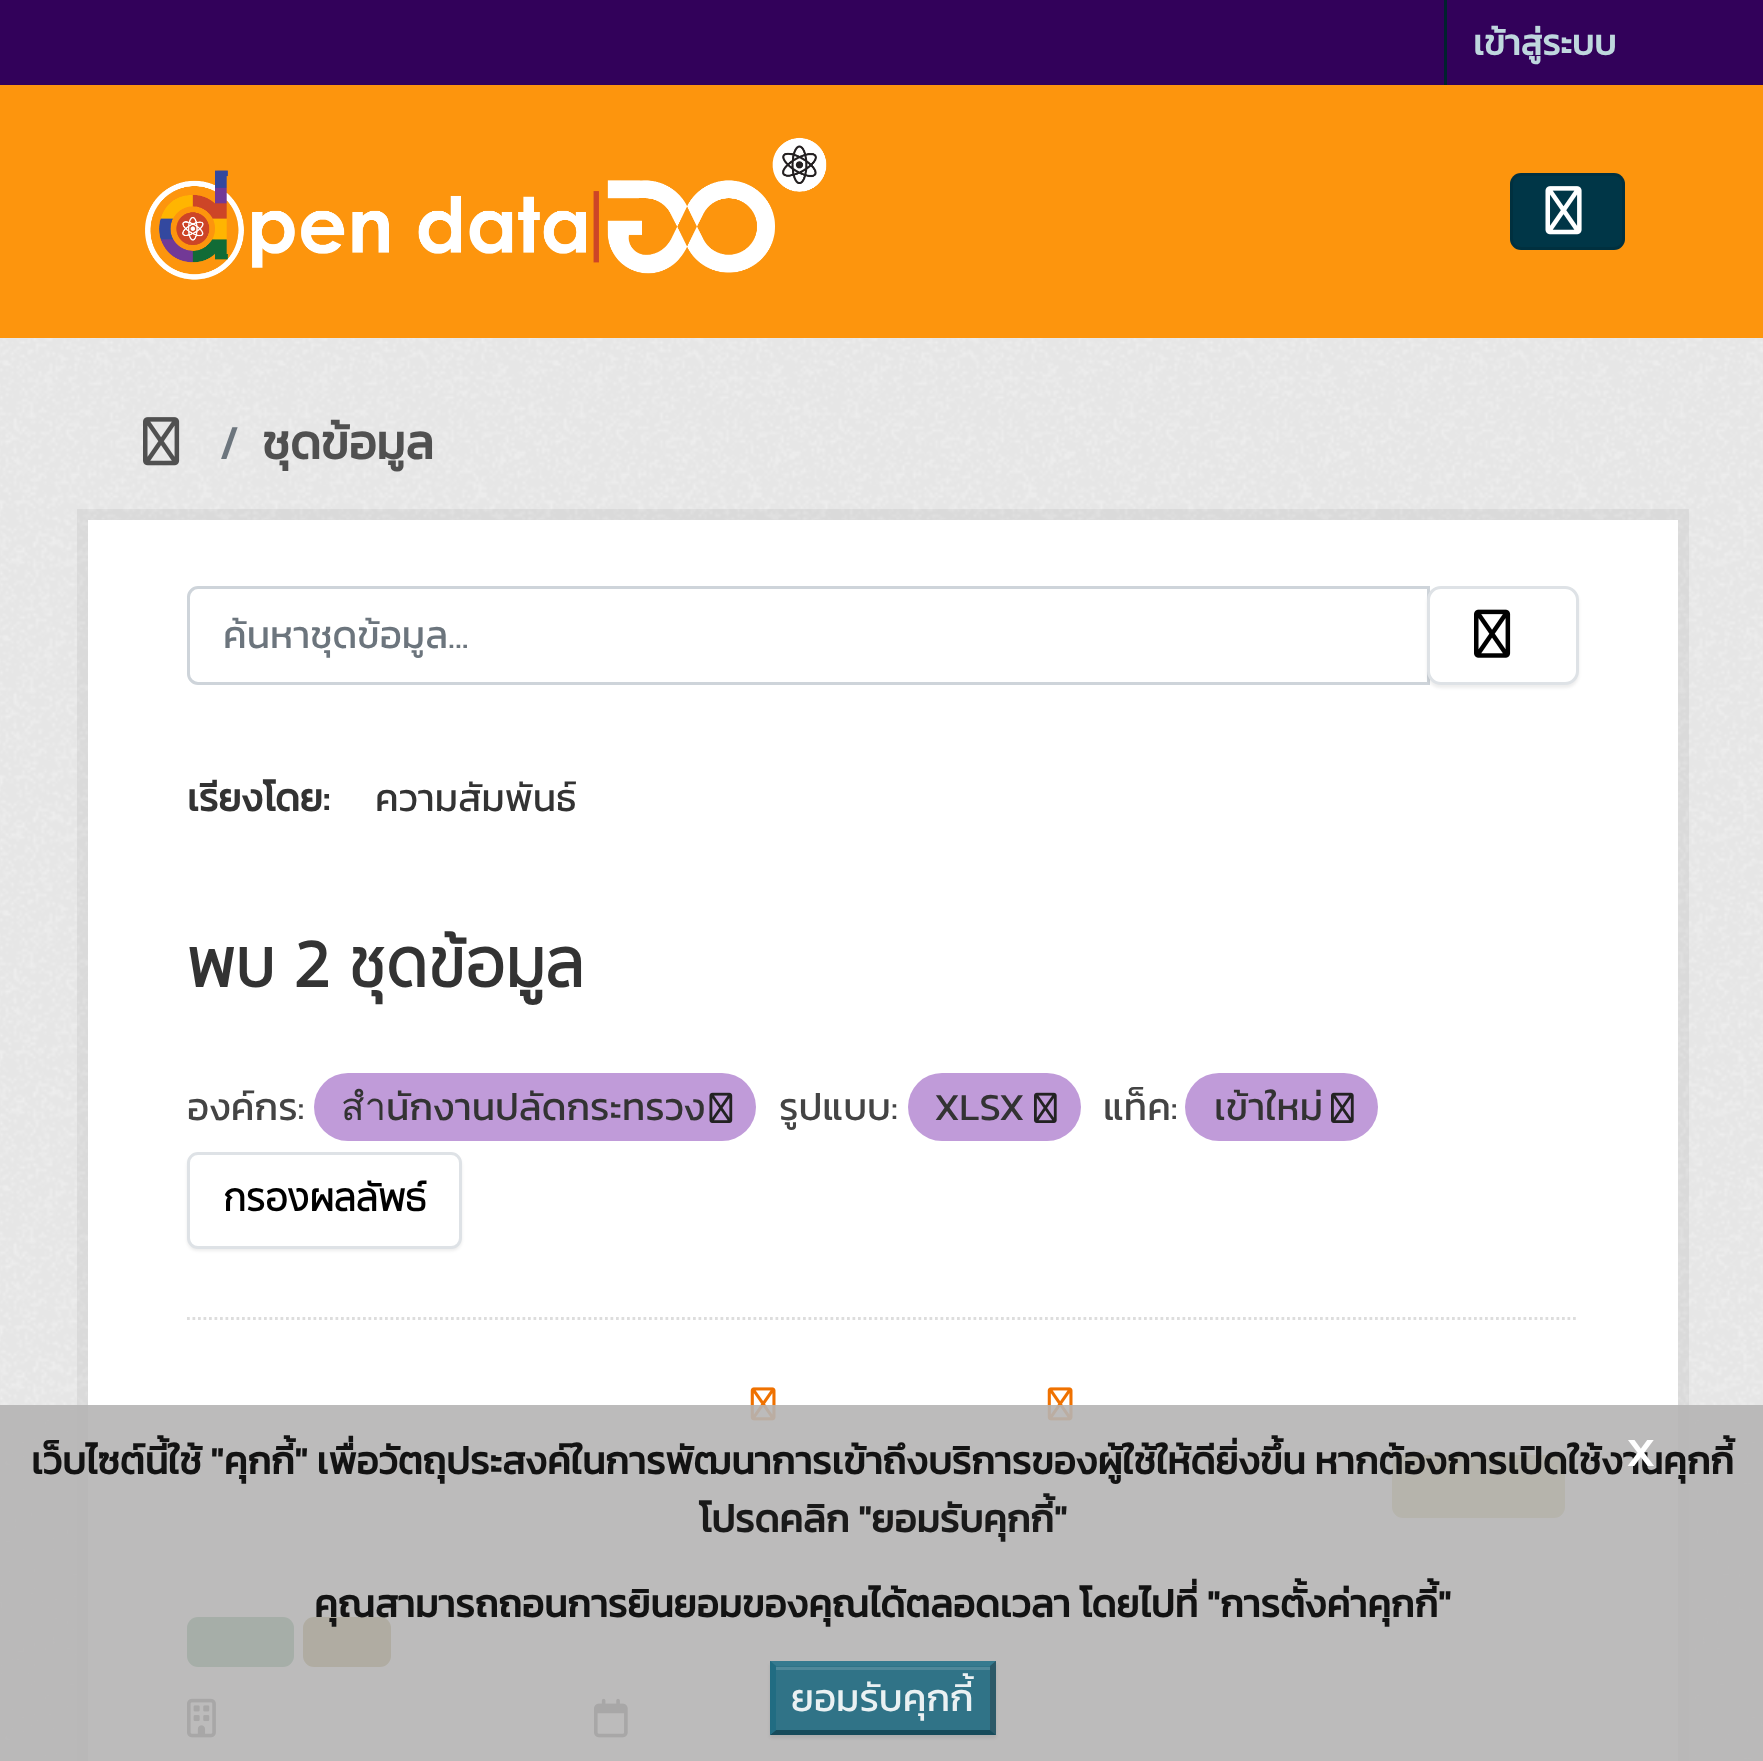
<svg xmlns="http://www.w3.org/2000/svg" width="1763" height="1761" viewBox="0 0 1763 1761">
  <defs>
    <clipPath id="clip1"><path d="M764 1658H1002V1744H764ZM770 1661H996V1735H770Z" clip-rule="evenodd"/></clipPath>
    <clipPath id="clip2"><path d="M223 608h1171v58H223z"/></clipPath>
  </defs>
  <rect width="100%" height="100%" fill="#32015a"/>
  <path d="M1444 0h3v85H1444z" fill="#00232e"/>
  <path d="M0 85h1763v253H0z" fill="#fd950d"/>
  <image x="145" y="137" width="682" height="143" href="img/1.png"/>
  <rect x="1510" y="173" width="115" height="77" rx="11" fill="#003647"/>
  <rect x="1511.5" y="174.5" width="112" height="74" rx="9.5" fill="none" stroke="#0000001a" stroke-width="3"/>
  <image x="1545" y="186" width="37" height="49" href="img/2.png"/>
  <path d="M0 338h1763v1423H0z" fill="#eee"/>
  <image x="0" y="338" width="1763" height="1423" href="img/3.png"/>
  <image x="143" y="417" width="37" height="49" href="img/4.png"/>
  <path d="M82.5 514.5h1601v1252H82.5z" fill="none" stroke="#0000000d" stroke-width="11"/>
  <path d="M88 520h1590v1241H88z" fill="#fff"/>
  <path d="M187 1318.5H1578.5" fill="none" stroke="#ddd" stroke-width="2.8" stroke-dasharray="2.75 2.75"/>
  <path d="M198 587.5H1428.5V683.5H198C193 683.5 188.5 679 188.5 674V597C188.5 592 193 587.5 198 587.5Z" fill="none" stroke="#ced4da" stroke-width="3"/>
  <rect x="1427" y="589" width="152" height="99" rx="14" fill="#00000012" filter="blur(1.5px)"/>
  <rect x="1428.5" y="587.5" width="149" height="96" rx="12.5" fill="#fff" stroke="#dee2e6" stroke-width="3"/>
  <image x="1474" y="609" width="37" height="49" href="img/5.png"/>
  <rect x="314" y="1073" width="442" height="68" rx="34" fill="#c09bd9"/>
  <image x="709" y="1092" width="24" height="31" href="img/6.png"/>
  <rect x="908" y="1073" width="173" height="68" rx="34" fill="#c09bd9"/>
  <image x="1034" y="1092" width="23" height="31" href="img/7.png"/>
  <rect x="1185" y="1073" width="193" height="68" rx="34" fill="#c09bd9"/>
  <image x="1331" y="1092" width="23" height="31" href="img/7.png"/>
  <rect x="187" y="1155" width="275" height="96" rx="11" fill="#00000012" filter="blur(1.5px)"/>
  <rect x="188.5" y="1153.5" width="272" height="94" rx="9.5" fill="#fff" stroke="#dee2e6" stroke-width="3"/>
  <image x="750" y="1387" width="26" height="34" href="img/8.png"/>
  <image x="1047" y="1387" width="26" height="34" href="img/8.png"/>
  <rect x="1392" y="1455" width="173" height="63" rx="11" fill="#bdb76b"/>
  <rect x="187" y="1617" width="107" height="50" rx="11" fill="#207e42"/>
  <rect x="303" y="1617" width="88" height="50" rx="11" fill="#856a00"/>
  <image x="187" y="1698" width="29" height="40" href="img/9.png"/>
  <image x="594" y="1698" width="34" height="40" href="img/10.png"/>
  <path d="M0 1405h1763v356H0z" fill="#b5b4b4e6"/>
  <g clip-path="url(#clip1)">
    <path d="M770 1664h226v74H770z" fill="#00000012" filter="blur(1.5px)"/>
  </g>
  <path d="M770 1661h226v74H770z" fill="#206b82e6"/>
  <path d="M776 1667h214v3H776z" fill="#4f889a"/>
  <path d="M770 1661H996L990 1666H776Z" fill="#367a8f"/>
  <path d="M996 1661V1735L990 1730V1666Z" fill="#2c5968"/>
  <path d="M996 1735H770L776 1730H990Z" fill="#154757e6"/>
  <path d="M770 1735V1661L776 1666V1730Z" fill="#206b82e6"/>
  <text x="1473" y="55" font-family="Kanit" font-size="35.75" font-weight="bold" fill="#bfd7de">เข้าสู่ระบบ</text>
  <text x="219" y="459" font-family="Kanit" font-size="48" fill="#6c757d">/</text>
  <text x="262" y="459" font-family="Kanit" font-size="48" font-weight="bold" fill="#505050">ชุดข้อมูล</text>
  <g clip-path="url(#clip2)">
    <text x="223" y="648" font-family="Kanit" font-size="38.5" fill="#6c757d">ค้นหาชุดข้อมูล...</text>
  </g>
  <text x="187" y="811" font-family="Kanit" font-size="38.5" font-weight="bold" fill="#333">เรียงโดย:</text>
  <text x="375" y="811" font-family="Kanit" font-size="38.5" fill="#333">ความสัมพันธ์</text>
  <text x="187" y="987" font-family="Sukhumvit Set" font-size="67.75" font-weight="bold" fill="#333">พบ 2 ชุดข้อมูล</text>
  <text x="187" y="1120" font-family="Kanit" font-size="38.5" fill="#444">องค์กร:</text>
  <text x="341" y="1120" font-family="Kanit" font-size="38.5" fill="#333">สำนักงานปลัดกระทรวง</text>
  <text x="779" y="1120" font-family="Kanit" font-size="38.5" fill="#444">รูปแบบ:</text>
  <text x="934" y="1120" font-family="Kanit" font-size="38.5" fill="#333">XLSX</text>
  <text x="1103" y="1120" font-family="Kanit" font-size="38.5" fill="#444">แท็ค:</text>
  <text x="1214" y="1120" font-family="Kanit" font-size="38.5" fill="#333">เข้าใหม่</text>
  <text x="223" y="1211" font-family="Sukhumvit Set" font-size="38.5" font-weight="bold" fill="#000">กรองผลลัพธ์</text>
  <text x="31" y="1474" font-family="Kanit" font-size="38.5" font-weight="bold" fill="#131313">เว็บไซต์นี้ใช้ "คุกกี้" เพื่อวัตถุประสงค์ในการพัฒนาการเข้าถึงบริการของผู้ใช้ให้ดียิ่งขึ้น หากต้องการเปิดใช้งานคุกกี้</text>
  <text x="699" y="1532" font-family="Kanit" font-size="38.5" font-weight="bold" fill="#1a1a1a">โปรดคลิก "ยอมรับคุกกี้"</text>
  <text x="1626" y="1466" font-family="Kanit" font-size="55" fill="#fff">x</text>
  <text x="314" y="1617" font-family="Kanit" font-size="38.5" font-weight="bold" fill="#131313">คุณสามารถถอนการยินยอมของคุณได้ตลอดเวลา โดยไปที่ "การตั้งค่าคุกกี้"</text>
  <text x="791" y="1711" font-family="Kanit" font-size="38.5" fill="#eaf1f3">ยอมรับคุกกี้</text>
</svg>
